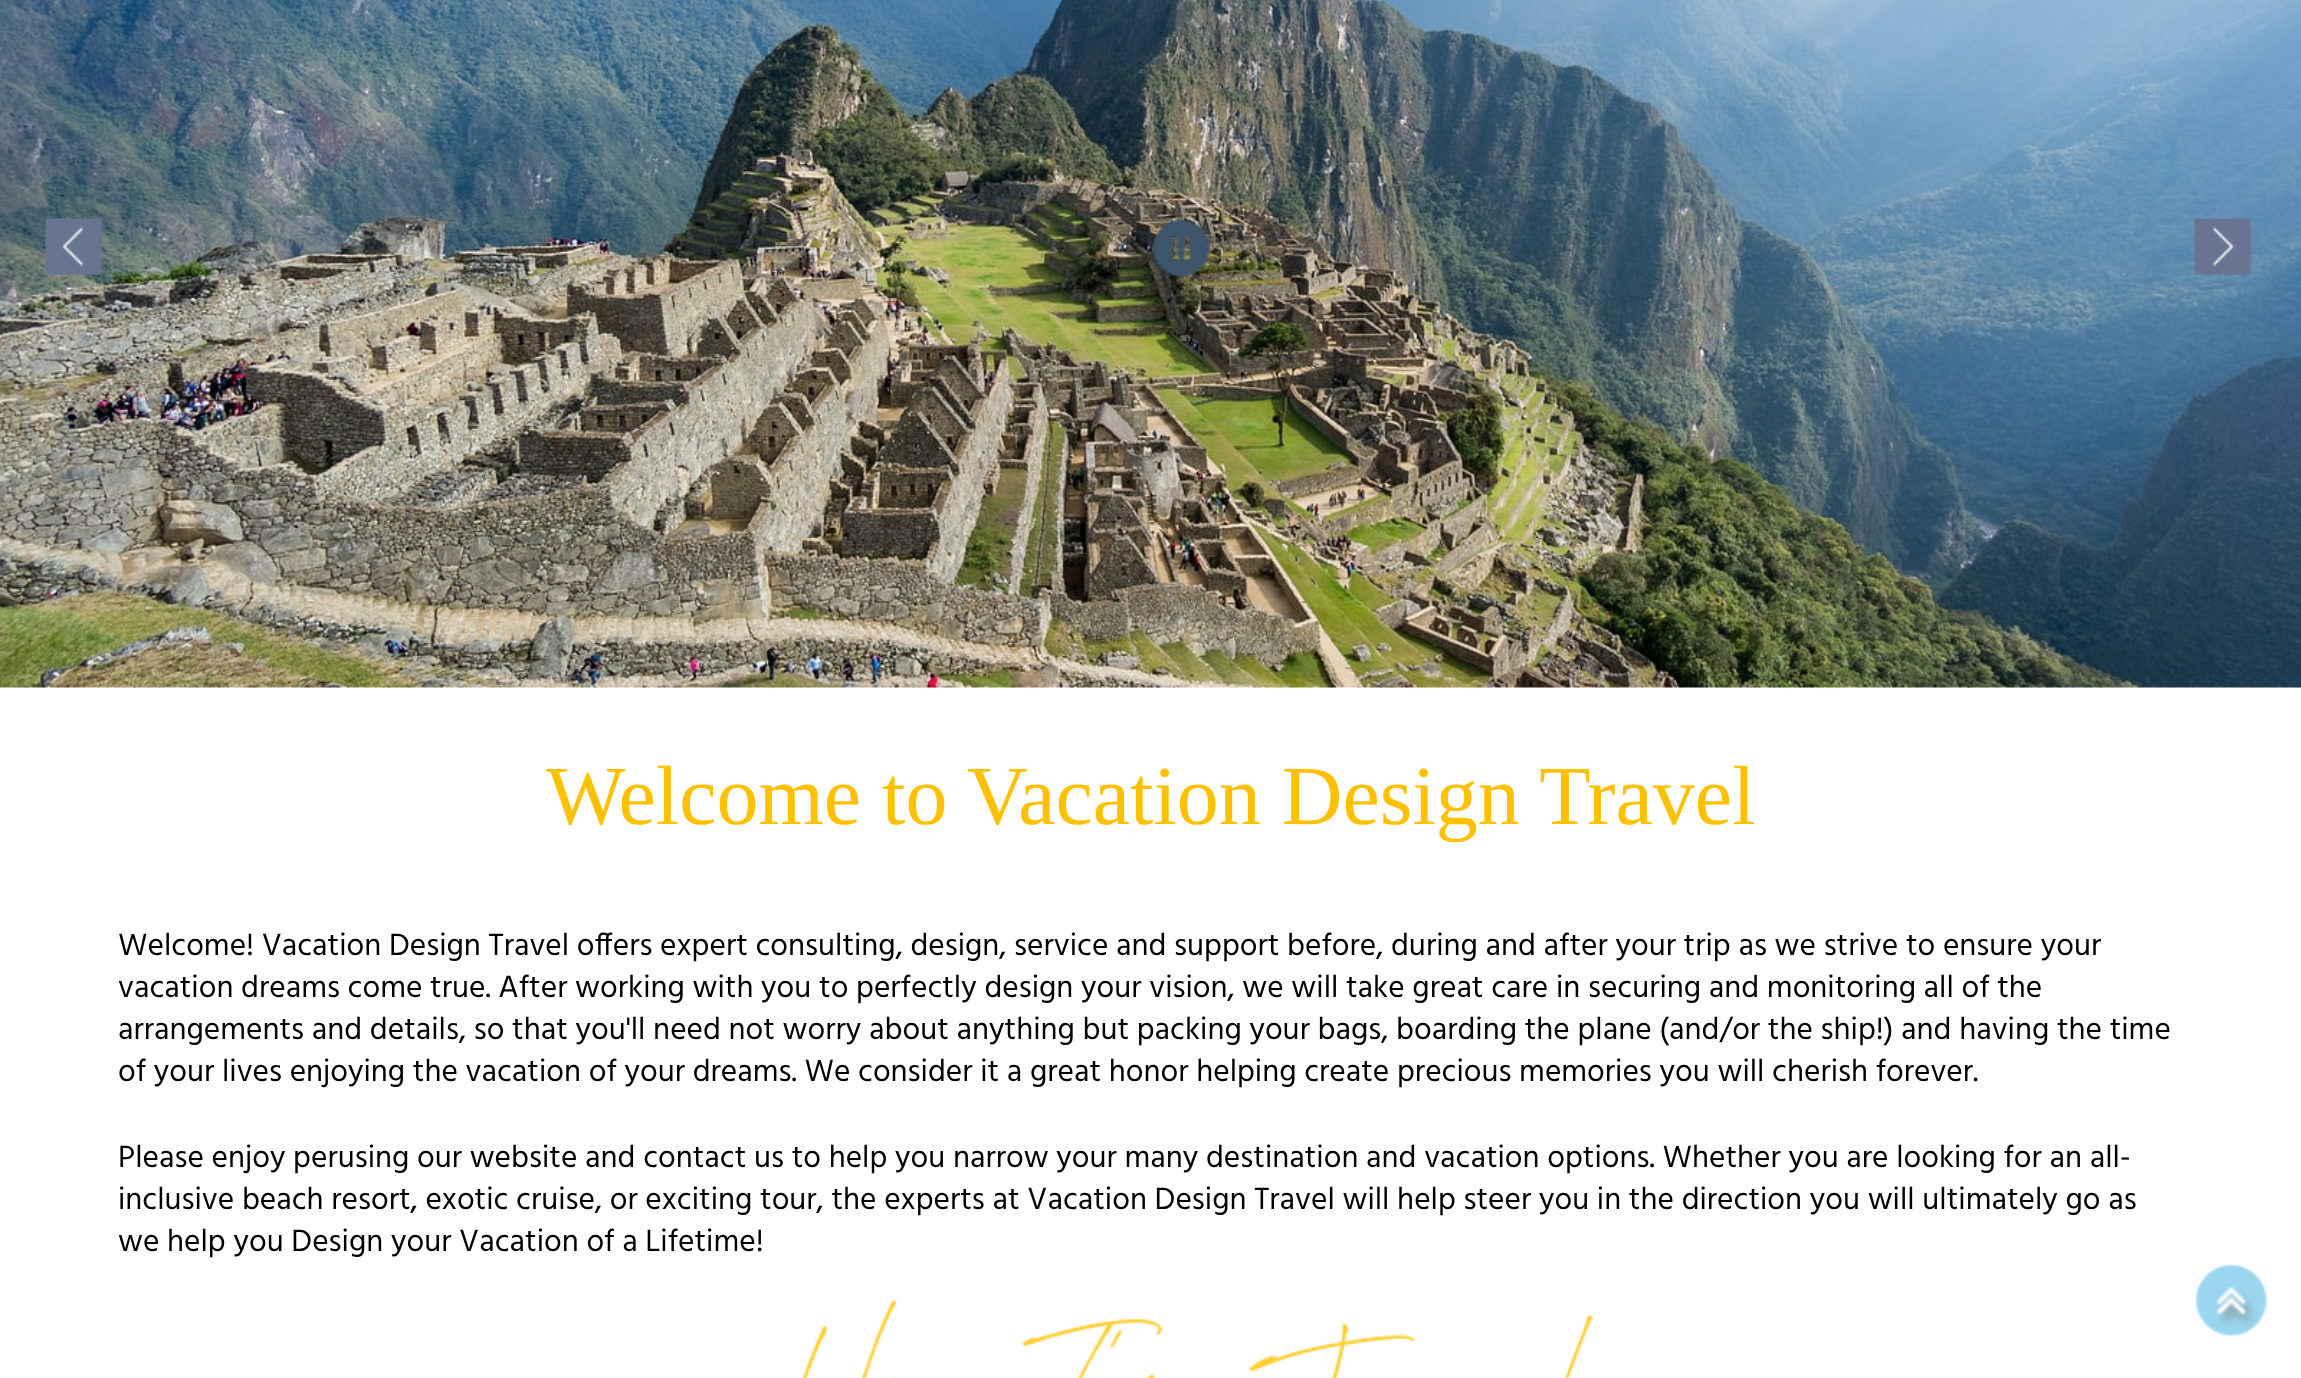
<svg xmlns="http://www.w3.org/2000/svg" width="2301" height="1378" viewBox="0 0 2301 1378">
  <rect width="100%" height="100%" fill="#fff"/>
  <image x="0" y="0" width="2301" height="688" href="img/1.png"/>
  <image x="45" y="218" width="57" height="57" href="img/2.png"/>
  <image x="1153" y="220" width="57" height="57" href="img/3.png"/>
  <image x="2194" y="218" width="57" height="57" href="img/4.png"/>
  <image x="801" y="1299" width="792" height="79" href="img/5.png"/>
  <image x="2195" y="1264" width="73" height="73" href="img/6.png"/>
  <text x="546" y="824" font-family="Liberation Serif" font-size="84" fill="#fdc100">Welcome to Vacation Design Travel</text>
  <g font-family="Hind" font-size="31.5" fill="#000">
    <text x="118" y="955">Welcome! Vacation Design Travel offers expert consulting, design, service and support before, during and after your trip as we strive to ensure your</text>
    <text x="118" y="997">vacation dreams come true. After working with you to perfectly design your vision, we will take great care in securing and monitoring all of the</text>
    <text x="118" y="1039">arrangements and details, so that you'll need not worry about anything but packing your bags, boarding the plane (and/or the ship!) and having the time</text>
    <text x="118" y="1081">of your lives enjoying the vacation of your dreams. We consider it a great honor helping create precious memories you will cherish forever.</text>
    <text x="118" y="1167">Please enjoy perusing our website and contact us to help you narrow your many destination and vacation options. Whether you are looking for an all-</text>
    <text x="118" y="1209">inclusive beach resort, exotic cruise, or exciting tour, the experts at Vacation Design Travel will help steer you in the direction you will ultimately go as</text>
    <text x="118" y="1251">we help you Design your Vacation of a Lifetime!</text>
  </g>
</svg>
